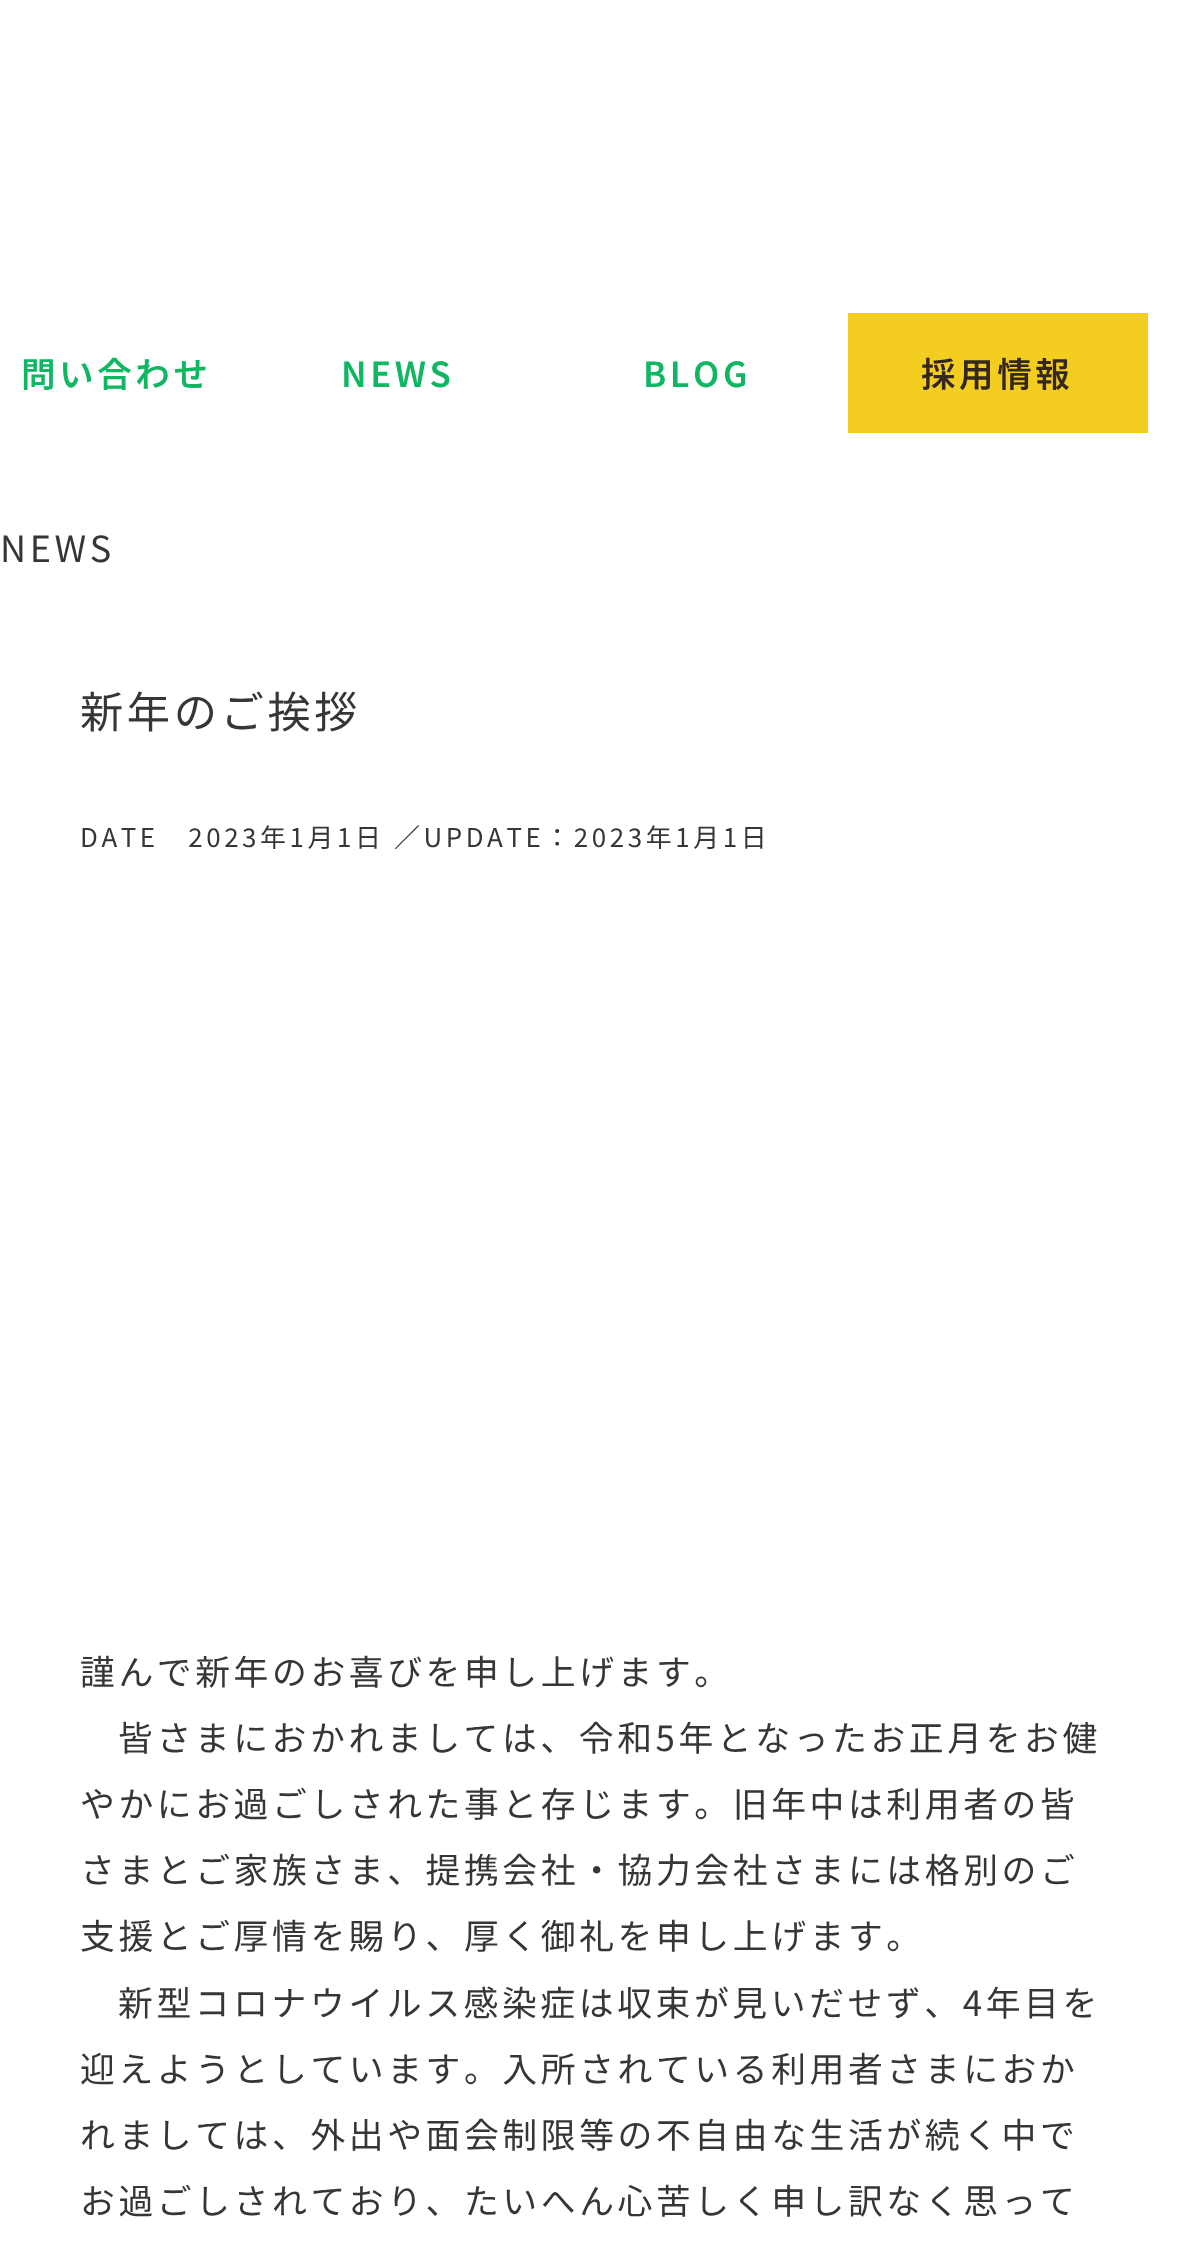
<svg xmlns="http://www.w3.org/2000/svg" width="1187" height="2244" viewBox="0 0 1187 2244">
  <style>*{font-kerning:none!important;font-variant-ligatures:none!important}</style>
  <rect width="100%" height="100%" fill="#fff"/>
  <path d="M848 313h300v120H848z" fill="#f4cd21"/>
  <g font-family="Noto Sans JP" font-size="34.5" font-weight="600" letter-spacing="3.6" fill="#0fb763">
    <text x="21" y="387">問い合わせ</text>
    <text x="341" y="387">NEWS</text>
    <text x="643" y="387">BLOG</text>
  </g>
  <text x="921" y="387" font-family="Noto Sans JP" font-size="34.5" font-weight="600" letter-spacing="3.6" fill="#33271f">採用情報</text>
  <text x="0" y="562" font-family="Noto Sans JP" font-size="36" letter-spacing="3.6" fill="#363636">NEWS</text>
  <text x="80" y="728" font-family="Noto Sans JP" font-size="43.25" letter-spacing="3.6" fill="#363636">新年のご挨拶</text>
  <text x="80" y="847" font-family="Noto Sans JP" font-size="25.9" letter-spacing="3.6" fill="#363636">DATE　2023年1月1日 ／UPDATE：2023年1月1日</text>
  <g font-family="Noto Sans JP" font-size="34.8" letter-spacing="3.6" fill="#363636">
    <text x="80" y="1685">謹んで新年のお喜びを申し上げます。</text>
    <text x="118" y="1751">皆さまにおかれましては、令和5年となったお正月をお健</text>
    <text x="80" y="1817">やかにお過ごしされた事と存じます。旧年中は利用者の皆</text>
    <text x="80" y="1883">さまとご家族さま、提携会社・協力会社さまには格別のご</text>
    <text x="80" y="1949">支援とご厚情を賜り、厚く御礼を申し上げます。</text>
    <text x="118" y="2016">新型コロナウイルス感染症は収束が見いだせず、4年目を</text>
    <text x="80" y="2082">迎えようとしています。入所されている利用者さまにおか</text>
    <text x="80" y="2148">れましては、外出や面会制限等の不自由な生活が続く中で</text>
    <text x="80" y="2214">お過ごしされており、たいへん心苦しく申し訳なく思って</text>
  </g>
</svg>
